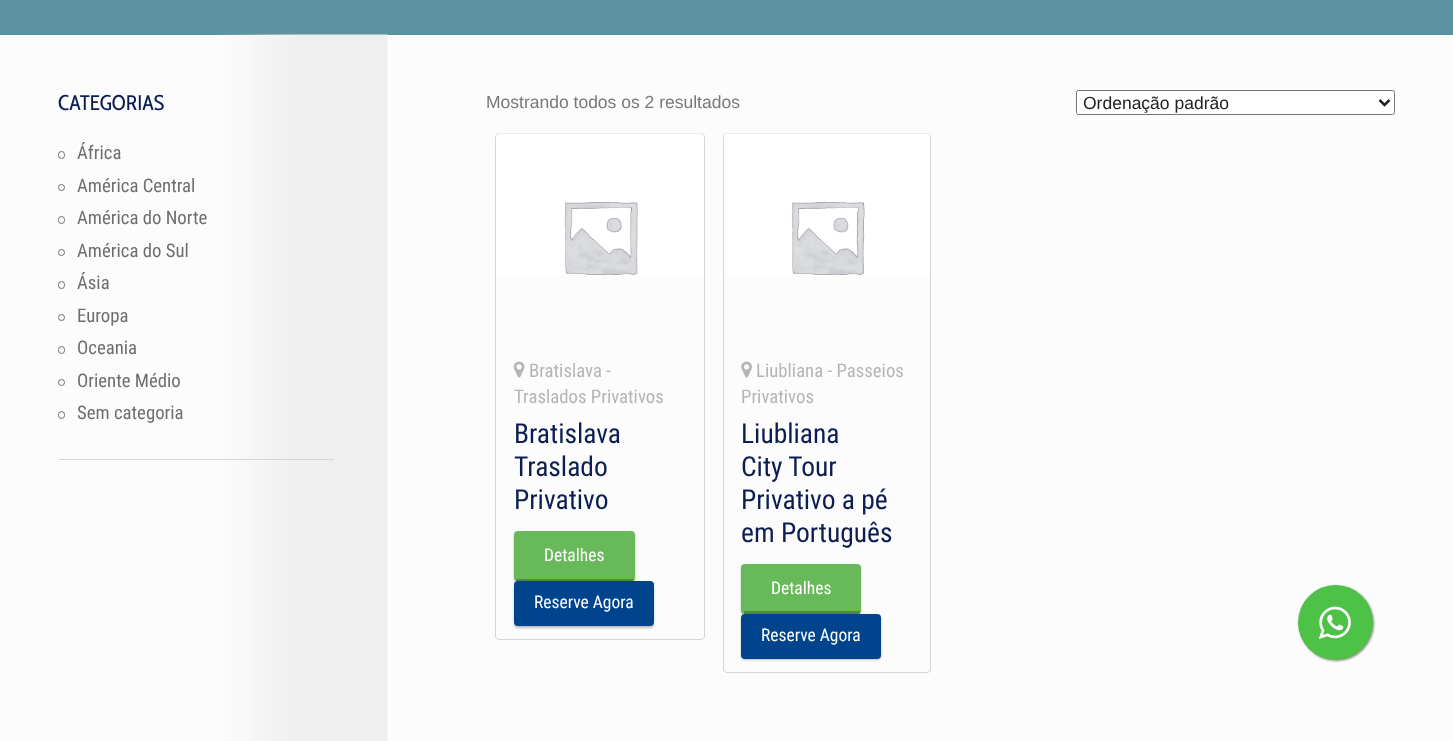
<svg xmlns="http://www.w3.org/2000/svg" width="1453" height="741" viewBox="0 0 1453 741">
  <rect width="100%" height="100%" fill="#5d92a3"/>
  <path d="M0 35h1453v706H0z" fill="#fcfcfc"/>
  <image x="219" y="34" width="169" height="707" href="img/1.png"/>
  <rect x="58.5" y="151.5" width="6" height="7" rx="3" fill="none" stroke="#6e6e6e"/>
  <circle cx="61.5" cy="187.5" r="3" fill="none" stroke="#6e6e6e"/>
  <rect x="58.5" y="216.5" width="6" height="7" rx="3" fill="none" stroke="#6e6e6e"/>
  <circle cx="61.5" cy="252.5" r="3" fill="none" stroke="#6e6e6e"/>
  <rect x="58.5" y="281.5" width="6" height="7" rx="3" fill="none" stroke="#6e6e6e"/>
  <circle cx="61.5" cy="317.5" r="3" fill="none" stroke="#6e6e6e"/>
  <rect x="58.5" y="346.5" width="6" height="7" rx="3" fill="none" stroke="#6e6e6e"/>
  <circle cx="61.5" cy="382.5" r="3" fill="none" stroke="#6e6e6e"/>
  <rect x="58.5" y="411.5" width="6" height="7" rx="3" fill="none" stroke="#6e6e6e"/>
  <path d="M59 459h275v1H59z" fill="#d7d7d7"/>
  <rect x="1076.5" y="90.5" width="318" height="24" rx="2" fill="#fff" stroke="#767676"/>
  <path d="M1379.5 100L1384.5 105L1389.5 100" fill="none" stroke="#222" stroke-width="2.5"/>
  <rect x="495.5" y="133.5" width="209" height="506" rx="3.5" fill="none" stroke="#d6d6d6"/>
  <image x="496" y="133" width="208" height="142" href="img/2.png"/>
  <image x="513" y="361" width="12" height="17" href="img/3.png"/>
  <rect x="514" y="533" width="121" height="50" rx="4" fill="#00000040" filter="blur(1px)"/>
  <rect x="514" y="531" width="121" height="50" rx="4" fill="#68b95a"/>
  <path d="M516 579h118v3H516z" fill="#00000040"/>
  <rect x="514" y="583" width="140" height="45" rx="4" fill="#00000040" filter="blur(1px)"/>
  <rect x="514" y="581" width="140" height="45" rx="4" fill="#00448d"/>
  <rect x="723.5" y="133.5" width="207" height="539" rx="3.5" fill="none" stroke="#d6d6d6"/>
  <image x="724" y="133" width="206" height="142" href="img/4.png"/>
  <image x="741" y="361" width="11" height="17" href="img/5.png"/>
  <rect x="741" y="565" width="120" height="50" rx="4" fill="#00000040" filter="blur(1px)"/>
  <rect x="741" y="564" width="120" height="50" rx="4" fill="#68b95a"/>
  <path d="M744 611h116v3H744z" fill="#00000040"/>
  <rect x="741" y="615" width="140" height="45" rx="4" fill="#00000040" filter="blur(1px)"/>
  <rect x="741" y="614" width="140" height="45" rx="4" fill="#00448d"/>
  <rect x="1299" y="586" width="75" height="75" rx="37.5" fill="#888" filter="blur(1px)"/>
  <circle cx="1335.5" cy="622.5" r="37.5" fill="#4dc247"/>
  <image x="1318" y="606" width="33" height="33" href="img/6.png"/>
  <text x="58" y="110" font-family="Cabin Condensed" font-size="21.25" fill="#0c1e51">CATEGORIAS</text>
  <g font-family="Roboto Condensed" font-size="18.75" fill="#6e6e6e">
    <text x="77" y="159">África</text>
    <text x="77" y="192">América Central</text>
    <text x="77" y="224">América do Norte</text>
    <text x="77" y="257">América do Sul</text>
    <text x="77" y="289">Ásia</text>
    <text x="77" y="322">Europa</text>
    <text x="77" y="354">Oceania</text>
    <text x="77" y="387">Oriente Médio</text>
    <text x="77" y="419">Sem categoria</text>
  </g>
  <text x="486" y="108" font-family="Liberation Sans" font-size="17.5" fill="#787878">Mostrando todos os 2 resultados</text>
  <text x="1083" y="109" font-family="Liberation Sans" font-size="17.5" fill="#222">Ordenação padrão</text>
  <g font-family="Roboto Condensed" font-size="18.75" fill="#b5b5b5">
    <text x="529" y="377">Bratislava -</text>
    <text x="514" y="403">Traslados Privativos</text>
  </g>
  <g font-family="Roboto Condensed" font-size="27.5" fill="#0c1e51">
    <text x="514" y="443">Bratislava</text>
    <text x="514" y="476">Traslado</text>
    <text x="514" y="509">Privativo</text>
  </g>
  <g font-family="Roboto Condensed" font-size="17.5" fill="#fff">
    <text x="544" y="561">Detalhes</text>
    <text x="534" y="608">Reserve Agora</text>
  </g>
  <g font-family="Roboto Condensed" font-size="18.75" fill="#b5b5b5">
    <text x="756" y="377">Liubliana - Passeios</text>
    <text x="741" y="403">Privativos</text>
  </g>
  <g font-family="Roboto Condensed" font-size="27.5" fill="#0c1e51">
    <text x="741" y="443">Liubliana</text>
    <text x="741" y="476">City Tour</text>
    <text x="741" y="509">Privativo a pé</text>
    <text x="741" y="542">em Português</text>
  </g>
  <g font-family="Roboto Condensed" font-size="17.5" fill="#fff">
    <text x="771" y="594">Detalhes</text>
    <text x="761" y="641">Reserve Agora</text>
  </g>
</svg>
